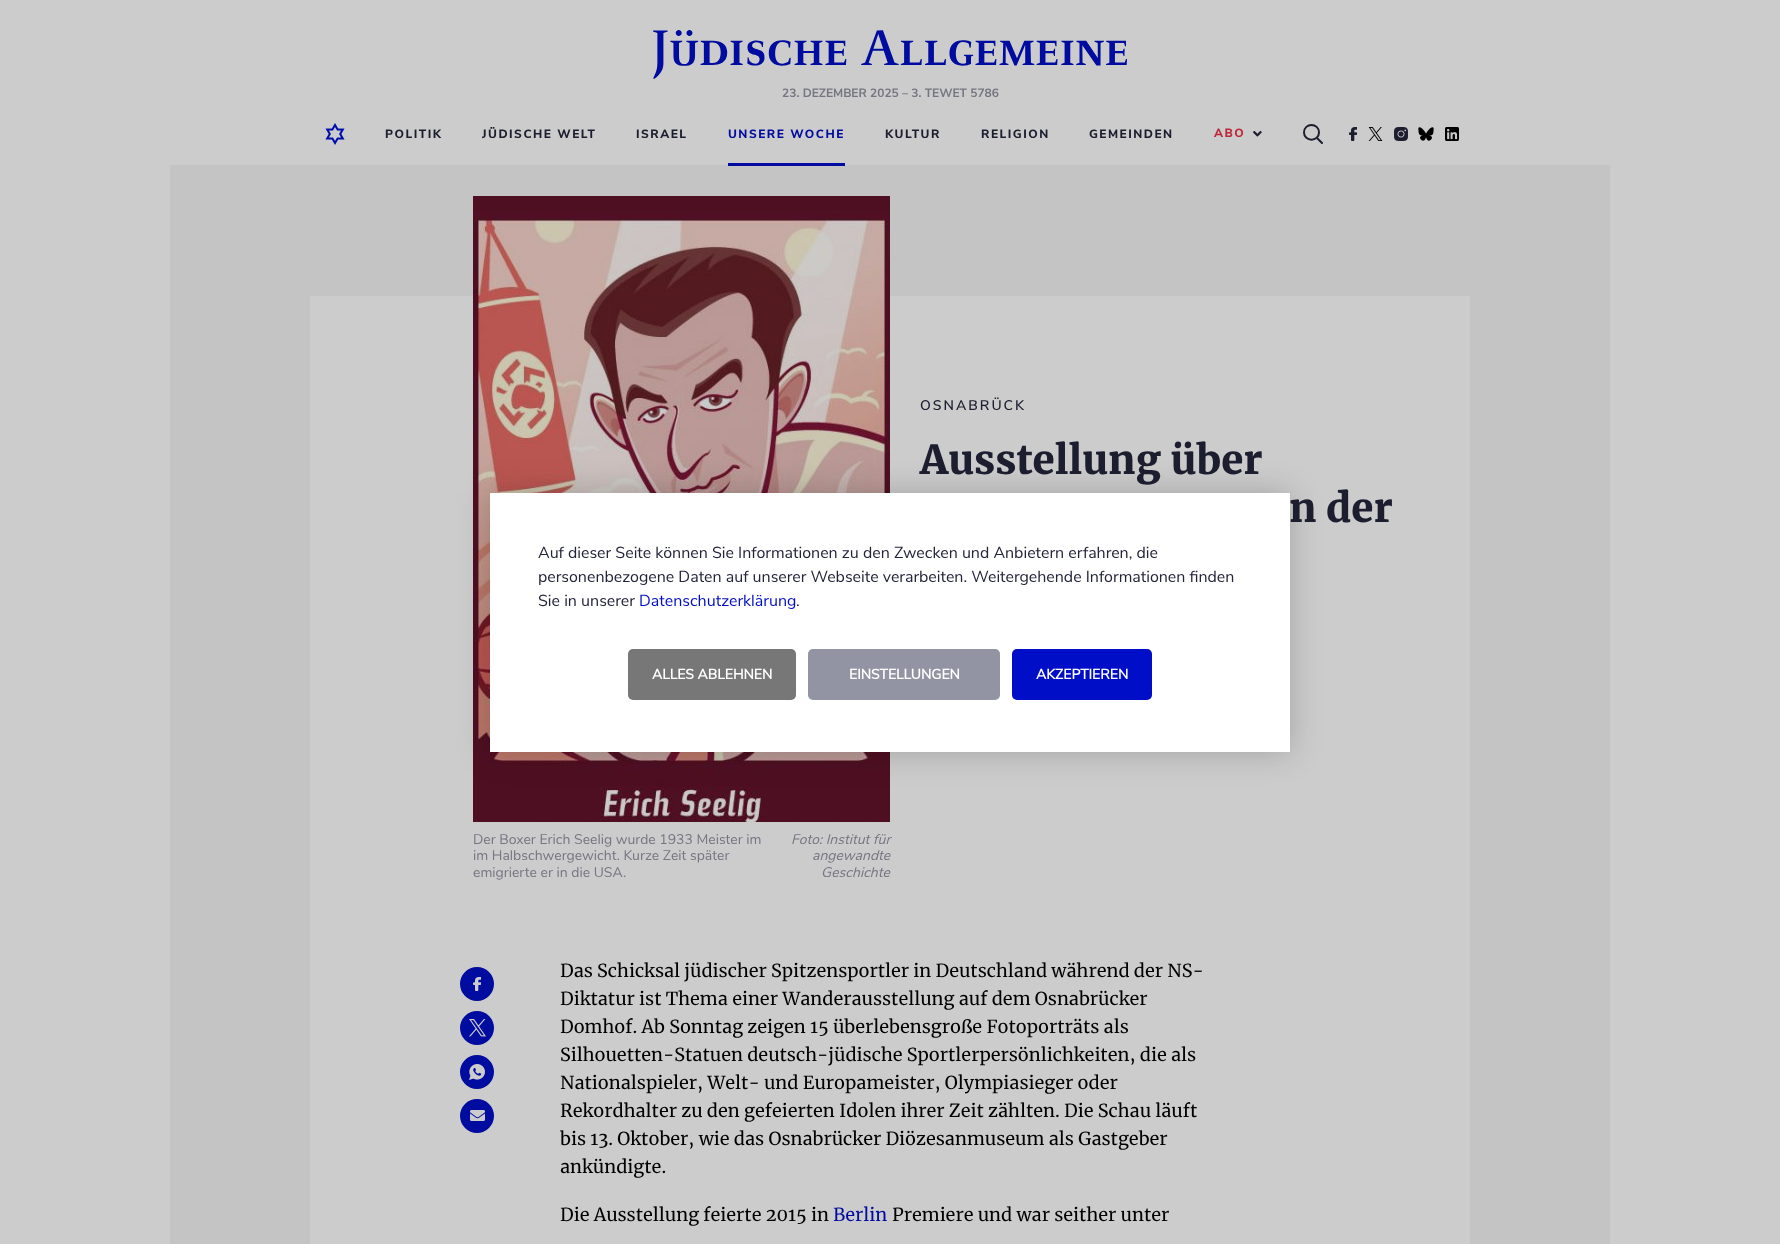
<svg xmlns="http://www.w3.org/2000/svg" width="1780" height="1244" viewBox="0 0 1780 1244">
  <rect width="100%" height="100%" fill="#ccc"/>
  <image x="653" y="30" width="474" height="49" href="img/1.png"/>
  <image x="325" y="123" width="20" height="22" href="img/2.png"/>
  <path d="M170 165h1440v1079H170z" fill="#c4c4c4"/>
  <path d="M728 163h117v3H728z" fill="#000b9f"/>
  <image x="1253" y="131" width="9" height="6" href="img/3.png"/>
  <path d="M1319 132.5C1319 122.5 1304 122.5 1304 132.5C1304 142 1319 142 1319 132.5Z" fill="none" stroke="#1c1d2e" stroke-width="2"/>
  <path d="M1317.5 138.5L1322 143" fill="none" stroke="#1c1d2e" stroke-width="2" stroke-linecap="round"/>
  <image x="1349" y="127" width="8" height="14" href="img/4.png"/>
  <image x="1368" y="127" width="15" height="14" href="img/5.png"/>
  <image x="1394" y="127" width="14" height="14" href="img/6.png"/>
  <image x="1418" y="127" width="16" height="14" href="img/7.png"/>
  <image x="1445" y="127" width="14" height="14" href="img/8.png"/>
  <path d="M310 296h1160v948H310z" fill="#ccc"/>
  <image x="473" y="196" width="417" height="626" href="img/9.png"/>
  <circle cx="477" cy="984" r="17" fill="#000b9f"/>
  <image x="473" y="977" width="8" height="14" href="img/10.png"/>
  <circle cx="477" cy="1028" r="17" fill="#000b9f"/>
  <image x="469" y="1019" width="17" height="18" href="img/11.png"/>
  <circle cx="477" cy="1072" r="17" fill="#000b9f"/>
  <image x="469" y="1064" width="16" height="16" href="img/12.png"/>
  <circle cx="477" cy="1116" r="17" fill="#000b9f"/>
  <image x="470" y="1110" width="15" height="11" href="img/13.png"/>
  <path d="M490 493h800v259H490z" fill="#00000033" filter="blur(16px)"/>
  <path d="M490 493h800v259H490z" fill="#fff"/>
  <rect x="628" y="649" width="168" height="51" rx="5" fill="#777"/>
  <rect x="808" y="649" width="192" height="51" rx="5" fill="#9394a3"/>
  <rect x="1012" y="649" width="140" height="51" rx="5" fill="#000ec7"/>
  <text x="782" y="97" font-family="Nunito Sans" font-size="12" font-weight="bold" fill="#767682">23. DEZEMBER 2025 – 3. TEWET 5786</text>
  <g font-family="Nunito Sans" font-size="12" font-weight="800" letter-spacing="1.5" fill="#1c1d2e">
    <text x="385" y="138">POLITIK</text>
    <text x="482" y="138">JÜDISCHE WELT</text>
    <text x="636" y="138">ISRAEL</text>
  </g>
  <text x="728" y="138" font-family="Nunito Sans" font-size="12" font-weight="800" letter-spacing="1.5" fill="#000b9f">UNSERE WOCHE</text>
  <g font-family="Nunito Sans" font-size="12" font-weight="800" letter-spacing="1.5" fill="#1c1d2e">
    <text x="885" y="138">KULTUR</text>
    <text x="981" y="138">RELIGION</text>
    <text x="1089" y="138">GEMEINDEN</text>
  </g>
  <text x="1214" y="137" font-family="Nunito Sans" font-size="12" font-weight="800" letter-spacing="1.5" fill="#be2a3a">ABO</text>
  <text x="920" y="410" font-family="Nunito Sans" font-size="14" font-weight="600" letter-spacing="2" fill="#1c1d2e">OSNABRÜCK</text>
  <g font-family="Merriweather" font-size="40" font-weight="900" fill="#1c1d2e">
    <text x="920" y="474">Ausstellung über</text>
    <text x="1289" y="522">n der</text>
  </g>
  <g font-family="Nunito Sans" font-size="14" fill="#767682">
    <text x="473" y="844">Der Boxer Erich Seelig wurde 1933 Meister im</text>
    <text x="473" y="860">im Halbschwergewicht. Kurze Zeit später</text>
    <text x="473" y="877">emigrierte er in die USA.</text>
  </g>
  <g font-family="Nunito Sans" font-size="14" font-style="italic" fill="#767682">
    <text x="791" y="844">Foto: Institut für</text>
    <text x="812" y="860">angewandte</text>
    <text x="821" y="877">Geschichte</text>
  </g>
  <g font-family="Merriweather" font-size="18" fill="#000">
    <text x="560" y="977">Das Schicksal jüdischer Spitzensportler in Deutschland während der NS-</text>
    <text x="560" y="1005">Diktatur ist Thema einer Wanderausstellung auf dem Osnabrücker</text>
    <text x="560" y="1033">Domhof. Ab Sonntag zeigen 15 überlebensgroße Fotoporträts als</text>
    <text x="560" y="1061">Silhouetten-Statuen deutsch-jüdische Sportlerpersönlichkeiten, die als</text>
    <text x="560" y="1089">Nationalspieler, Welt- und Europameister, Olympiasieger oder</text>
    <text x="560" y="1117">Rekordhalter zu den gefeierten Idolen ihrer Zeit zählten. Die Schau läuft</text>
    <text x="560" y="1145">bis 13. Oktober, wie das Osnabrücker Diözesanmuseum als Gastgeber</text>
    <text x="560" y="1173">ankündigte.</text>
    <text x="560" y="1221">Die Ausstellung feierte 2015 in</text>
  </g>
  <text x="833" y="1221" font-family="Merriweather" font-size="18" fill="#000b9f">Berlin</text>
  <text x="892" y="1221" font-family="Merriweather" font-size="18" fill="#000">Premiere und war seither unter</text>
  <g font-family="Nunito Sans" font-size="16" fill="#23243a">
    <text x="538" y="558">Auf dieser Seite können Sie Informationen zu den Zwecken und Anbietern erfahren, die</text>
    <text x="538" y="582">personenbezogene Daten auf unserer Webseite verarbeiten. Weitergehende Informationen finden</text>
    <text x="538" y="606">Sie in unserer</text>
  </g>
  <text x="639" y="606" font-family="Nunito Sans" font-size="16" fill="#000ec7">Datenschutzerklärung</text>
  <text x="796" y="606" font-family="Nunito Sans" font-size="16" fill="#23243a">.</text>
  <g font-family="'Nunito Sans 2'" font-size="14" font-weight="bold" fill="#fff">
    <text x="652" y="679">ALLES ABLEHNEN</text>
    <text x="849" y="679">EINSTELLUNGEN</text>
    <text x="1036" y="679">AKZEPTIEREN</text>
  </g>
</svg>
